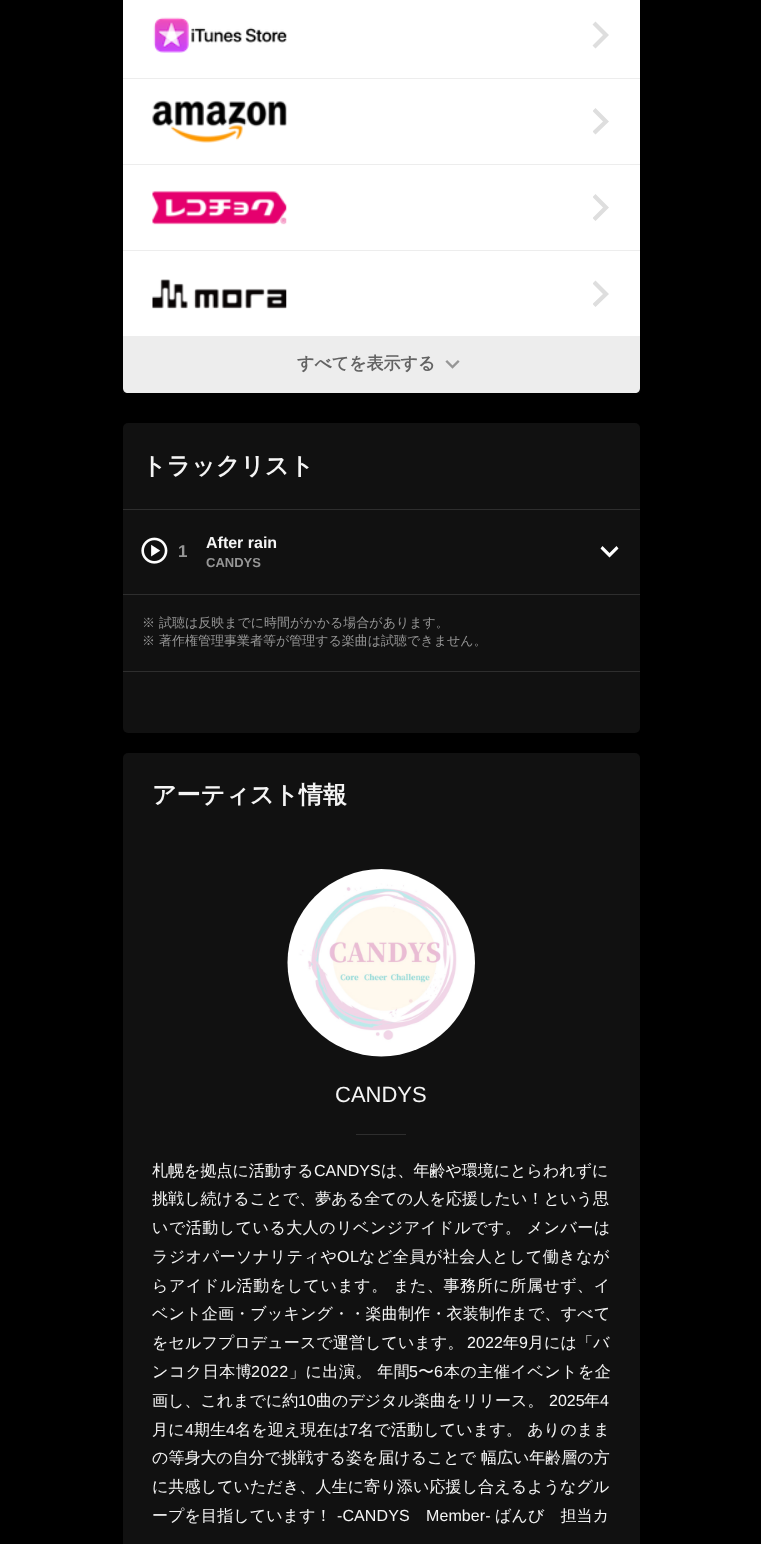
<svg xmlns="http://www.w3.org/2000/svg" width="761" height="1544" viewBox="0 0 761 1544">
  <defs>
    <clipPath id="clip1"><path d="M593 96h17v50H593z"/></clipPath>
    <clipPath id="clip2"><path d="M593 183h17v50H593z"/></clipPath>
    <clipPath id="clip3"><path d="M593 269h17v50H593z"/></clipPath>
  </defs>
  <rect width="100%" height="100%" fill="#000"/>
  <path d="M123 388h517v5H123z" fill="#111"/>
  <path d="M123 0h517v336H123z" fill="#fff"/>
  <image x="153" y="17" width="134" height="36" href="img/1.png"/>
  <path d="M592.5 45.5L603 35L592.5 24.5L595.5 21.5L609 35L595.5 48.5Z" fill="#dedede"/>
  <path d="M123 78h517v1H123z" fill="#ededed"/>
  <image x="152" y="100" width="135" height="43" href="img/2.png"/>
  <g clip-path="url(#clip1)">
    <path d="M592.5 131.5L603 121.5L592.5 111L595.5 108L609 121.5L595.5 134.5Z" fill="#dedede"/>
  </g>
  <path d="M123 164h517v1H123z" fill="#ededed"/>
  <image x="152" y="190" width="135" height="35" href="img/3.png"/>
  <g clip-path="url(#clip2)">
    <path d="M592.5 218L603 207.5L592.5 197L595.5 194L609 207.5L595.5 221Z" fill="#dedede"/>
  </g>
  <path d="M123 250h517v1H123z" fill="#ededed"/>
  <image x="152" y="279" width="135" height="30" href="img/4.png"/>
  <g clip-path="url(#clip3)">
    <path d="M592.5 304L603 294L592.5 283.5L595.5 280.5L609 294L595.5 307Z" fill="#dedede"/>
  </g>
  <path d="M123 336H640V388C640 391 638 393 635 393H128C125 393 123 391 123 388Z" fill="#ededed"/>
  <image x="445" y="360" width="15" height="9" href="img/5.png"/>
  <rect x="123" y="423" width="517" height="310" rx="5" fill="#111"/>
  <path d="M123 509h517v1H123z" fill="#2e2e2e"/>
  <path d="M123 671h517v1H123z" fill="#2e2e2e"/>
  <path d="M123 594h517v1H123z" fill="#2e2e2e"/>
  <image x="141" y="537" width="27" height="27" href="img/6.png"/>
  <path d="M616.5 546L609.5 553L602.5 546L600.5 548.5L609.5 557.5L618.5 548.5Z" fill="#fff"/>
  <rect x="123" y="753" width="517" height="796" rx="5" fill="#111"/>
  <image x="287" y="869" width="188" height="188" href="img/7.png"/>
  <path d="M356 1134h50v1H356z" fill="#2e2e2e"/>
  <text x="297" y="369" font-family="WenQuanYi Zen Hei" font-size="17" font-weight="bold" fill="#636363">すべてを表示する</text>
  <text x="142" y="474" font-family="WenQuanYi Zen Hei" font-size="24" font-weight="bold" fill="#f5f5f5">トラックリスト</text>
  <text x="178" y="557" font-family="Liberation Sans" font-size="17" font-weight="bold" fill="#969696">1</text>
  <text x="206" y="548" font-family="Liberation Sans" font-size="16" font-weight="bold" fill="#f5f5f5">After rain</text>
  <text x="206" y="567" font-family="Liberation Sans" font-size="13" font-weight="bold" fill="#969696">CANDYS</text>
  <g font-family="WenQuanYi Zen Hei" font-size="13" font-weight="500" fill="#969696">
    <text x="142" y="627">※ 試聴は反映までに時間がかかる場合があります。</text>
    <text x="142" y="645">※ 著作権管理事業者等が管理する楽曲は試聴できません。</text>
  </g>
  <text x="152" y="803" font-family="WenQuanYi Zen Hei" font-size="24" font-weight="bold" fill="#f5f5f5">アーティスト情報</text>
  <text x="335" y="1102" font-family="Liberation Sans" font-size="22" fill="#f5f5f5">CANDYS</text>
  <text x="152" y="1176" font-family="WenQuanYi Zen Hei" font-size="16" font-weight="500" fill="#f5f5f5">札幌を拠点に活動する</text>
  <text x="314" y="1176" font-family="Liberation Sans" font-size="16" fill="#f5f5f5">CANDYS</text>
  <text x="381" y="1176" font-family="WenQuanYi Zen Hei" font-size="16" font-weight="500" fill="#f5f5f5">は、年齢や環境にとらわれずに</text>
  <text x="152" y="1204" font-family="WenQuanYi Zen Hei" font-size="16" font-weight="500" letter-spacing="0.1" fill="#f5f5f5">挑戦し続けることで、夢ある全ての人を応援したい！という思</text>
  <g font-family="WenQuanYi Zen Hei" font-size="16" font-weight="500" letter-spacing="0.5" fill="#f5f5f5">
    <text x="152" y="1233">いで活動している大人のリベンジアイドルです。 メンバーは</text>
    <text x="152" y="1262">ラジオパーソナリティや</text>
  </g>
  <text x="337" y="1262" font-family="Liberation Sans" font-size="16" letter-spacing="0.5" fill="#f5f5f5">OL</text>
  <text x="359" y="1262" font-family="WenQuanYi Zen Hei" font-size="16" font-weight="500" letter-spacing="0.5" fill="#f5f5f5">など全員が社会人として働きなが</text>
  <text x="152" y="1291" font-family="WenQuanYi Zen Hei" font-size="16" font-weight="500" letter-spacing="0.55" fill="#f5f5f5">らアイドル活動をしています。 また、事務所に所属せず、イ</text>
  <text x="152" y="1319" font-family="WenQuanYi Zen Hei" font-size="16" font-weight="500" letter-spacing="0.2" fill="#f5f5f5">ベント企画・ブッキング・・楽曲制作・衣装制作まで、すべて</text>
  <text x="152" y="1348" font-family="WenQuanYi Zen Hei" font-size="16" font-weight="500" letter-spacing="0.1" fill="#f5f5f5">をセルフプロデュースで運営しています。</text>
  <text x="467" y="1348" font-family="Liberation Sans" font-size="16" letter-spacing="0.1" fill="#f5f5f5">2022</text>
  <text x="503" y="1348" font-family="WenQuanYi Zen Hei" font-size="16" font-weight="500" letter-spacing="0.1" fill="#f5f5f5">年</text>
  <text x="519" y="1348" font-family="Liberation Sans" font-size="16" letter-spacing="0.1" fill="#f5f5f5">9</text>
  <text x="528" y="1348" font-family="WenQuanYi Zen Hei" font-size="16" font-weight="500" letter-spacing="0.1" fill="#f5f5f5">月には「バ</text>
  <text x="152" y="1377" font-family="WenQuanYi Zen Hei" font-size="16" font-weight="500" letter-spacing="0.5" fill="#f5f5f5">ンコク日本博</text>
  <text x="251" y="1377" font-family="Liberation Sans" font-size="16" letter-spacing="0.5" fill="#f5f5f5">2022</text>
  <text x="289" y="1377" font-family="WenQuanYi Zen Hei" font-size="16" font-weight="500" letter-spacing="0.5" fill="#f5f5f5">」に出演。 年間</text>
  <text x="409" y="1377" font-family="Liberation Sans" font-size="16" letter-spacing="0.5" fill="#f5f5f5">5</text>
  <text x="418" y="1377" font-family="WenQuanYi Zen Hei" font-size="16" font-weight="500" letter-spacing="0.5" fill="#f5f5f5">〜</text>
  <text x="434" y="1377" font-family="Liberation Sans" font-size="16" letter-spacing="0.5" fill="#f5f5f5">6</text>
  <text x="444" y="1377" font-family="WenQuanYi Zen Hei" font-size="16" font-weight="500" letter-spacing="0.5" fill="#f5f5f5">本の主催イベントを企</text>
  <text x="152" y="1406" font-family="WenQuanYi Zen Hei" font-size="16" font-weight="500" fill="#f5f5f5">画し、これまでに約</text>
  <text x="298" y="1406" font-family="Liberation Sans" font-size="16" fill="#f5f5f5">10</text>
  <text x="316" y="1406" font-family="WenQuanYi Zen Hei" font-size="16" font-weight="500" fill="#f5f5f5">曲のデジタル楽曲をリリース。</text>
  <text x="549" y="1406" font-family="Liberation Sans" font-size="16" fill="#f5f5f5">2025</text>
  <text x="584" y="1406" font-family="WenQuanYi Zen Hei" font-size="16" font-weight="500" fill="#f5f5f5">年</text>
  <text x="600" y="1406" font-family="Liberation Sans" font-size="16" fill="#f5f5f5">4</text>
  <text x="152" y="1435" font-family="WenQuanYi Zen Hei" font-size="16" font-weight="500" letter-spacing="0.2" fill="#f5f5f5">月に</text>
  <text x="185" y="1435" font-family="Liberation Sans" font-size="16" letter-spacing="0.2" fill="#f5f5f5">4</text>
  <text x="194" y="1435" font-family="WenQuanYi Zen Hei" font-size="16" font-weight="500" letter-spacing="0.2" fill="#f5f5f5">期生</text>
  <text x="226" y="1435" font-family="Liberation Sans" font-size="16" letter-spacing="0.2" fill="#f5f5f5">4</text>
  <text x="235" y="1435" font-family="WenQuanYi Zen Hei" font-size="16" font-weight="500" letter-spacing="0.2" fill="#f5f5f5">名を迎え現在は</text>
  <text x="349" y="1435" font-family="Liberation Sans" font-size="16" letter-spacing="0.2" fill="#f5f5f5">7</text>
  <text x="358" y="1435" font-family="WenQuanYi Zen Hei" font-size="16" font-weight="500" letter-spacing="0.2" fill="#f5f5f5">名で活動しています。 ありのまま</text>
  <text x="152" y="1463" font-family="WenQuanYi Zen Hei" font-size="16" font-weight="500" fill="#f5f5f5">の等身大の自分で挑戦する姿を届けることで 幅広い年齢層の方</text>
  <g font-family="WenQuanYi Zen Hei" font-size="16" font-weight="500" letter-spacing="0.1" fill="#f5f5f5">
    <text x="152" y="1492">に共感していただき、人生に寄り添い応援し合えるようなグル</text>
    <text x="152" y="1521">ープを目指しています！</text>
  </g>
  <g font-family="Liberation Sans" font-size="16" letter-spacing="0.1" fill="#f5f5f5">
    <text x="337" y="1521">-CANDYS</text>
    <text x="426" y="1521">Member-</text>
  </g>
  <text x="495" y="1521" font-family="WenQuanYi Zen Hei" font-size="16" font-weight="500" letter-spacing="0.1" fill="#f5f5f5">ばんび　担当カ</text>
</svg>
